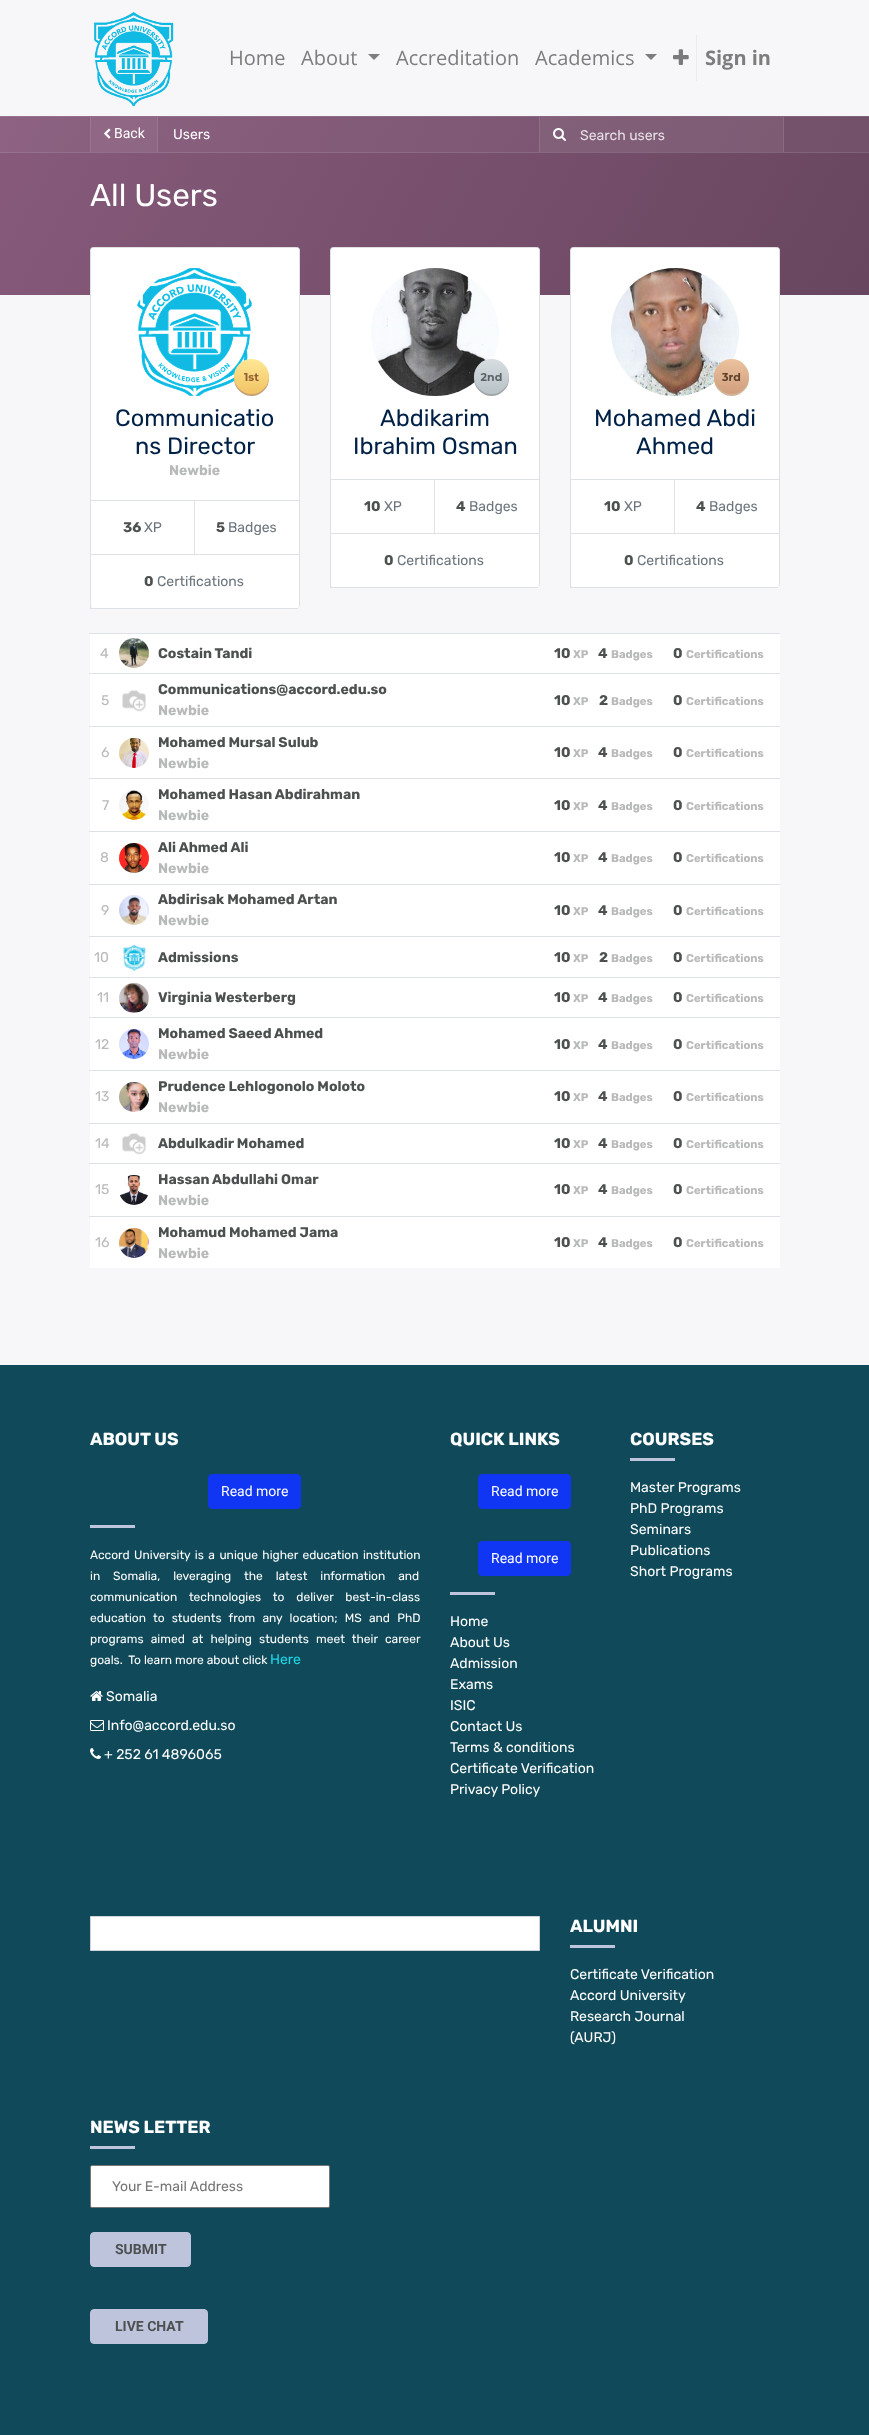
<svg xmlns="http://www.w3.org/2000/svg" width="869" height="2435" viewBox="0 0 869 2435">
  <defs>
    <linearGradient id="g1" gradientUnits="userSpaceOnUse" x1="70" y1="-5" x2="799" y2="416"><stop offset="0" stop-color="#875a7b"/><stop offset="1" stop-color="#68465f"/></linearGradient>
    <linearGradient id="g2" gradientUnits="userSpaceOnUse" x1="70" y1="-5" x2="799" y2="416"><stop offset="0" stop-color="#8d6282"/><stop offset="1" stop-color="#704f67"/></linearGradient>
    <linearGradient id="g3" gradientUnits="userSpaceOnUse" x1="70" y1="-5" x2="799" y2="416"><stop offset="0" stop-color="#936a88"/><stop offset="1" stop-color="#77586f"/></linearGradient>
    <linearGradient id="g4" gradientUnits="userSpaceOnUse" x1="70" y1="-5" x2="799" y2="416"><stop offset="0" stop-color="#98728f"/><stop offset="1" stop-color="#7e6176"/></linearGradient>
  </defs>
  <rect width="100%" height="100%" fill="#f7f7fa"/>
  <image x="94" y="12" width="80" height="95" href="img/1.png"/>
  <path d="M368 54H380L374 60Z" fill="#7d7d7d"/>
  <path d="M645 54H657L651 60Z" fill="#7d7d7d"/>
  <image x="673" y="49" width="16" height="16" href="img/2.png"/>
  <path d="M696 35h1v46H696z" fill="#e9ecef"/>
  <path d="M0 153h869v142H0z" fill="url(#g1)"/>
  <path d="M0 117h869v35H0z" fill="url(#g2)"/>
  <path d="M540 117h243v35H540z" fill="url(#g3)"/>
  <path d="M91 117h66v35H91z" fill="url(#g3)"/>
  <path d="M0 152h869v1H0z" fill="url(#g4)"/>
  <path d="M0 116h869v1H0z" fill="url(#g4)"/>
  <path d="M157 117h1v35H157z" fill="#997690"/>
  <path d="M90 117h1v35H90z" fill="#9b7791"/>
  <image x="104" y="128" width="7" height="11" href="img/3.png"/>
  <path d="M783 117h1v35H783z" fill="#896c81"/>
  <path d="M539 117h1v35H539z" fill="#8f7087"/>
  <image x="553" y="128" width="13" height="13" href="img/4.png"/>
  <rect x="90" y="247" width="210" height="362" rx="4" fill="#fff"/>
  <path d="M94 247H296C298 247 300 249 300 251V605C300 607 298 609 296 609H94C92 609 90 607 90 605V251C90 249 92 247 94 247ZM94 248H296C298 248 299 249 299 251V605C299 607 298 609 296 609H94C92 609 91 607 91 605V251C91 249 92 248 94 248Z" fill="#0000001f" fill-rule="evenodd"/>
  <path d="M94 248H296C297.5 248 299 249.5 299 251V501H91V251C91 249.5 92.5 248 94 248Z" fill="#ffffffe6"/>
  <image x="137" y="268" width="115" height="128" href="img/5.png"/>
  <image x="234" y="359" width="35" height="37" href="img/6.png"/>
  <path d="M91 500h208v1H91z" fill="#dee2e6"/>
  <path d="M298 554h1v1H298z" fill="#dee2e6"/>
  <path d="M194 500h1v55H194z" fill="#dee2e6"/>
  <path d="M90 554h208v1H90z" fill="#dee2e6"/>
  <path d="M90 608h208v1H90z" fill="#dee2e6"/>
  <path d="M90 554h1v55H90z" fill="#dee2e6"/>
  <rect x="330" y="247" width="210" height="341" rx="4" fill="#fff"/>
  <path d="M334 247H536C538 247 540 249 540 251V584C540 586 538 588 536 588H334C332 588 330 586 330 584V251C330 249 332 247 334 247ZM334 248H536C538 248 539 249 539 251V584C539 586 538 588 536 588H334C332 588 331 586 331 584V251C331 249 332 248 334 248Z" fill="#0000001f" fill-rule="evenodd"/>
  <path d="M334 248H536C537.5 248 539 249.5 539 251V480H331V251C331 249.5 332.5 248 334 248Z" fill="#ffffffe6"/>
  <image x="371" y="268" width="128" height="128" href="img/7.png"/>
  <image x="474" y="359" width="35" height="37" href="img/8.png"/>
  <path d="M331 479h208v1H331z" fill="#dee2e6"/>
  <path d="M538 533h1v1H538z" fill="#dee2e6"/>
  <path d="M434 479h1v55H434z" fill="#dee2e6"/>
  <path d="M330 533h208v1H330z" fill="#dee2e6"/>
  <path d="M330 587h208v1H330z" fill="#dee2e6"/>
  <path d="M330 533h1v55H330z" fill="#dee2e6"/>
  <rect x="570" y="247" width="210" height="341" rx="4" fill="#fff"/>
  <path d="M574 247H776C778 247 780 249 780 251V584C780 586 778 588 776 588H574C572 588 570 586 570 584V251C570 249 572 247 574 247ZM574 248H776C778 248 779 249 779 251V584C779 586 778 588 776 588H574C572 588 571 586 571 584V251C571 249 572 248 574 248Z" fill="#0000001f" fill-rule="evenodd"/>
  <path d="M574 248H776C777.5 248 779 249.5 779 251V480H571V251C571 249.5 572.5 248 574 248Z" fill="#ffffffe6"/>
  <image x="611" y="268" width="128" height="128" href="img/9.png"/>
  <image x="714" y="359" width="35" height="37" href="img/10.png"/>
  <path d="M571 479h208v1H571z" fill="#dee2e6"/>
  <path d="M778 533h1v1H778z" fill="#dee2e6"/>
  <path d="M674 479h1v55H674z" fill="#dee2e6"/>
  <path d="M570 533h208v1H570z" fill="#dee2e6"/>
  <path d="M570 587h208v1H570z" fill="#dee2e6"/>
  <path d="M570 533h1v55H570z" fill="#dee2e6"/>
  <path d="M90 634h690v39H90z" fill="#fff"/>
  <image x="119" y="638" width="30" height="30" href="img/11.png"/>
  <path d="M89 633h691v1H89z" fill="#dee2e6"/>
  <path d="M90 674h690v52H90z" fill="#fff"/>
  <image x="122" y="690" width="24" height="22" href="img/12.png"/>
  <path d="M89 673h691v1H89z" fill="#dee2e6"/>
  <path d="M90 727h690v51H90z" fill="#fff"/>
  <image x="119" y="738" width="30" height="30" href="img/13.png"/>
  <path d="M89 726h691v1H89z" fill="#dee2e6"/>
  <path d="M90 779h690v52H90z" fill="#fff"/>
  <image x="119" y="790" width="30" height="30" href="img/14.png"/>
  <path d="M89 778h691v1H89z" fill="#dee2e6"/>
  <path d="M90 832h690v52H90z" fill="#fff"/>
  <image x="119" y="843" width="30" height="30" href="img/15.png"/>
  <path d="M89 831h691v1H89z" fill="#dee2e6"/>
  <path d="M90 885h690v51H90z" fill="#fff"/>
  <image x="119" y="895" width="30" height="30" href="img/16.png"/>
  <path d="M89 884h691v1H89z" fill="#dee2e6"/>
  <path d="M90 937h690v40H90z" fill="#fff"/>
  <image x="122" y="944" width="24" height="28" href="img/17.png"/>
  <path d="M89 936h691v1H89z" fill="#dee2e6"/>
  <path d="M90 978h690v39H90z" fill="#fff"/>
  <image x="119" y="983" width="30" height="30" href="img/18.png"/>
  <path d="M89 977h691v1H89z" fill="#dee2e6"/>
  <path d="M90 1018h690v52H90z" fill="#fff"/>
  <image x="119" y="1029" width="30" height="30" href="img/19.png"/>
  <path d="M89 1017h691v1H89z" fill="#dee2e6"/>
  <path d="M90 1071h690v52H90z" fill="#fff"/>
  <image x="119" y="1082" width="30" height="30" href="img/20.png"/>
  <path d="M89 1070h691v1H89z" fill="#dee2e6"/>
  <path d="M90 1124h690v39H90z" fill="#fff"/>
  <image x="122" y="1133" width="24" height="22" href="img/12.png"/>
  <path d="M89 1123h691v1H89z" fill="#dee2e6"/>
  <path d="M90 1164h690v52H90z" fill="#fff"/>
  <image x="120" y="1175" width="28" height="30" href="img/21.png"/>
  <path d="M89 1163h691v1H89z" fill="#dee2e6"/>
  <path d="M90 1217h690v51H90z" fill="#fff"/>
  <image x="119" y="1228" width="30" height="30" href="img/22.png"/>
  <path d="M89 1216h691v1H89z" fill="#dee2e6"/>
  <path d="M0 1365h869v1070H0z" fill="#104a5a"/>
  <rect x="208.5" y="1474.5" width="92" height="34" rx="3.5" fill="#1036f3" stroke="#1036f3"/>
  <path d="M90 1525h45v3H90z" fill="#bfc4dd"/>
  <image x="90" y="1691" width="13" height="10" href="img/23.png"/>
  <image x="90" y="1720" width="14" height="11" href="img/24.png"/>
  <image x="90" y="1748" width="11" height="11" href="img/25.png"/>
  <rect x="478.5" y="1474.5" width="92" height="34" rx="3.5" fill="#1036f3" stroke="#1036f3"/>
  <rect x="478.5" y="1541.5" width="92" height="34" rx="3.5" fill="#1036f3" stroke="#1036f3"/>
  <path d="M450 1592h45v3H450z" fill="#bfc4dd"/>
  <path d="M630 1458h45v3H630z" fill="#bfc4dd"/>
  <path d="M90.5 1916.5h449v34H90.5z" fill="#fff" stroke="#ced4da"/>
  <path d="M570 1945h45v3H570z" fill="#bfc4dd"/>
  <path d="M90 2146h45v3H90z" fill="#bfc4dd"/>
  <rect x="90.5" y="2165.5" width="239" height="42" rx="1.5" fill="#fff" stroke="#767676"/>
  <rect x="90.5" y="2232.5" width="100" height="34" rx="3.5" fill="#bfc4dd" stroke="#bfc4dd"/>
  <rect x="90.5" y="2309.5" width="117" height="34" rx="3.5" fill="#bfc4dd" stroke="#bfc4dd"/>
  <g font-family="Open Sans" font-size="20" fill="#7d7d7d">
    <text x="229" y="65">Home</text>
    <text x="301" y="65">About</text>
    <text x="396" y="65">Accreditation</text>
    <text x="535" y="65">Academics</text>
  </g>
  <text x="705" y="65" font-family="Open Sans" font-size="20" font-weight="bold" fill="#7d7d7d">Sign in</text>
  <text x="114" y="138" font-family="Roboto" font-size="14" fill="#fff">Back</text>
  <text x="173" y="139" font-family="Rubik" font-size="14" fill="#fff">Users</text>
  <text x="580" y="140" font-family="Rubik" font-size="14" fill="#e6dfe4">Search users</text>
  <text x="90" y="206" font-family="Rubik" font-size="31.5" fill="#fff">All Users</text>
  <g font-family="Rubik" font-size="23.5" fill="#002147">
    <text x="115" y="426">Communicatio</text>
    <text x="135" y="454">ns Director</text>
  </g>
  <text x="169" y="475" font-family="Rubik" font-size="14" font-weight="bold" fill="#b8b9b9">Newbie</text>
  <text x="123" y="532" font-family="Rubik" font-size="14" font-weight="bold" fill="#4d5050">36</text>
  <text x="144" y="532" font-family="Rubik" font-size="14" fill="#6c757d">XP</text>
  <text x="216" y="532" font-family="Rubik" font-size="14" font-weight="bold" fill="#4d5050">5</text>
  <text x="228" y="532" font-family="Rubik" font-size="14" fill="#6c757d">Badges</text>
  <text x="144" y="586" font-family="Rubik" font-size="14" font-weight="bold" fill="#4d5050">0</text>
  <text x="157" y="586" font-family="Rubik" font-size="14" fill="#6c757d">Certifications</text>
  <g font-family="Rubik" font-size="23.5" fill="#002147">
    <text x="380" y="426">Abdikarim</text>
    <text x="353" y="454">Ibrahim Osman</text>
  </g>
  <text x="364" y="511" font-family="Rubik" font-size="14" font-weight="bold" fill="#4d5050">10</text>
  <text x="384" y="511" font-family="Rubik" font-size="14" fill="#6c757d">XP</text>
  <text x="456" y="511" font-family="Rubik" font-size="14" font-weight="bold" fill="#4d5050">4</text>
  <text x="469" y="511" font-family="Rubik" font-size="14" fill="#6c757d">Badges</text>
  <text x="384" y="565" font-family="Rubik" font-size="14" font-weight="bold" fill="#4d5050">0</text>
  <text x="397" y="565" font-family="Rubik" font-size="14" fill="#6c757d">Certifications</text>
  <g font-family="Rubik" font-size="23.5" fill="#002147">
    <text x="594" y="426">Mohamed Abdi</text>
    <text x="636" y="454">Ahmed</text>
  </g>
  <text x="604" y="511" font-family="Rubik" font-size="14" font-weight="bold" fill="#4d5050">10</text>
  <text x="624" y="511" font-family="Rubik" font-size="14" fill="#6c757d">XP</text>
  <text x="696" y="511" font-family="Rubik" font-size="14" font-weight="bold" fill="#4d5050">4</text>
  <text x="709" y="511" font-family="Rubik" font-size="14" fill="#6c757d">Badges</text>
  <text x="624" y="565" font-family="Rubik" font-size="14" font-weight="bold" fill="#4d5050">0</text>
  <text x="637" y="565" font-family="Rubik" font-size="14" fill="#6c757d">Certifications</text>
  <text x="100" y="658" font-family="Rubik" font-size="14" fill="#b8b9b9">4</text>
  <g font-family="Rubik" font-size="14" font-weight="bold" fill="#4d5050">
    <text x="158" y="658">Costain Tandi</text>
    <text x="554" y="658">10</text>
  </g>
  <text x="573" y="658" font-family="Rubik" font-size="11.25" font-weight="bold" fill="#b8b9b9">XP</text>
  <text x="598" y="658" font-family="Rubik" font-size="14" font-weight="bold" fill="#4d5050">4</text>
  <text x="611" y="658" font-family="Rubik" font-size="11.25" font-weight="bold" fill="#b8b9b9">Badges</text>
  <text x="673" y="658" font-family="Rubik" font-size="14" font-weight="bold" fill="#4d5050">0</text>
  <text x="686" y="658" font-family="Rubik" font-size="11.25" font-weight="bold" fill="#b8b9b9">Certifications</text>
  <text x="101" y="705" font-family="Rubik" font-size="14" fill="#b8b9b9">5</text>
  <text x="158" y="694" font-family="Rubik" font-size="14" font-weight="bold" fill="#4d5050">Communications@accord.edu.so</text>
  <text x="158" y="715" font-family="Rubik" font-size="14" font-weight="bold" fill="#b8b9b9">Newbie</text>
  <text x="554" y="705" font-family="Rubik" font-size="14" font-weight="bold" fill="#4d5050">10</text>
  <text x="573" y="705" font-family="Rubik" font-size="11.25" font-weight="bold" fill="#b8b9b9">XP</text>
  <text x="599" y="705" font-family="Rubik" font-size="14" font-weight="bold" fill="#4d5050">2</text>
  <text x="611" y="705" font-family="Rubik" font-size="11.25" font-weight="bold" fill="#b8b9b9">Badges</text>
  <text x="673" y="705" font-family="Rubik" font-size="14" font-weight="bold" fill="#4d5050">0</text>
  <text x="686" y="705" font-family="Rubik" font-size="11.25" font-weight="bold" fill="#b8b9b9">Certifications</text>
  <text x="101" y="757" font-family="Rubik" font-size="14" fill="#b8b9b9">6</text>
  <text x="158" y="747" font-family="Rubik" font-size="14" font-weight="bold" fill="#4d5050">Mohamed Mursal Sulub</text>
  <text x="158" y="768" font-family="Rubik" font-size="14" font-weight="bold" fill="#b8b9b9">Newbie</text>
  <text x="554" y="757" font-family="Rubik" font-size="14" font-weight="bold" fill="#4d5050">10</text>
  <text x="573" y="757" font-family="Rubik" font-size="11.25" font-weight="bold" fill="#b8b9b9">XP</text>
  <text x="598" y="757" font-family="Rubik" font-size="14" font-weight="bold" fill="#4d5050">4</text>
  <text x="611" y="757" font-family="Rubik" font-size="11.25" font-weight="bold" fill="#b8b9b9">Badges</text>
  <text x="673" y="757" font-family="Rubik" font-size="14" font-weight="bold" fill="#4d5050">0</text>
  <text x="686" y="757" font-family="Rubik" font-size="11.25" font-weight="bold" fill="#b8b9b9">Certifications</text>
  <text x="102" y="810" font-family="Rubik" font-size="14" fill="#b8b9b9">7</text>
  <text x="158" y="799" font-family="Rubik" font-size="14" font-weight="bold" fill="#4d5050">Mohamed Hasan Abdirahman</text>
  <text x="158" y="820" font-family="Rubik" font-size="14" font-weight="bold" fill="#b8b9b9">Newbie</text>
  <text x="554" y="810" font-family="Rubik" font-size="14" font-weight="bold" fill="#4d5050">10</text>
  <text x="573" y="810" font-family="Rubik" font-size="11.25" font-weight="bold" fill="#b8b9b9">XP</text>
  <text x="598" y="810" font-family="Rubik" font-size="14" font-weight="bold" fill="#4d5050">4</text>
  <text x="611" y="810" font-family="Rubik" font-size="11.25" font-weight="bold" fill="#b8b9b9">Badges</text>
  <text x="673" y="810" font-family="Rubik" font-size="14" font-weight="bold" fill="#4d5050">0</text>
  <text x="686" y="810" font-family="Rubik" font-size="11.25" font-weight="bold" fill="#b8b9b9">Certifications</text>
  <text x="100" y="862" font-family="Rubik" font-size="14" fill="#b8b9b9">8</text>
  <text x="158" y="852" font-family="Rubik" font-size="14" font-weight="bold" fill="#4d5050">Ali Ahmed Ali</text>
  <text x="158" y="873" font-family="Rubik" font-size="14" font-weight="bold" fill="#b8b9b9">Newbie</text>
  <text x="554" y="862" font-family="Rubik" font-size="14" font-weight="bold" fill="#4d5050">10</text>
  <text x="573" y="862" font-family="Rubik" font-size="11.25" font-weight="bold" fill="#b8b9b9">XP</text>
  <text x="598" y="862" font-family="Rubik" font-size="14" font-weight="bold" fill="#4d5050">4</text>
  <text x="611" y="862" font-family="Rubik" font-size="11.25" font-weight="bold" fill="#b8b9b9">Badges</text>
  <text x="673" y="862" font-family="Rubik" font-size="14" font-weight="bold" fill="#4d5050">0</text>
  <text x="686" y="862" font-family="Rubik" font-size="11.25" font-weight="bold" fill="#b8b9b9">Certifications</text>
  <text x="101" y="915" font-family="Rubik" font-size="14" fill="#b8b9b9">9</text>
  <text x="158" y="904" font-family="Rubik" font-size="14" font-weight="bold" fill="#4d5050">Abdirisak Mohamed Artan</text>
  <text x="158" y="925" font-family="Rubik" font-size="14" font-weight="bold" fill="#b8b9b9">Newbie</text>
  <text x="554" y="915" font-family="Rubik" font-size="14" font-weight="bold" fill="#4d5050">10</text>
  <text x="573" y="915" font-family="Rubik" font-size="11.25" font-weight="bold" fill="#b8b9b9">XP</text>
  <text x="598" y="915" font-family="Rubik" font-size="14" font-weight="bold" fill="#4d5050">4</text>
  <text x="611" y="915" font-family="Rubik" font-size="11.25" font-weight="bold" fill="#b8b9b9">Badges</text>
  <text x="673" y="915" font-family="Rubik" font-size="14" font-weight="bold" fill="#4d5050">0</text>
  <text x="686" y="915" font-family="Rubik" font-size="11.25" font-weight="bold" fill="#b8b9b9">Certifications</text>
  <text x="94" y="962" font-family="Rubik" font-size="14" fill="#b8b9b9">10</text>
  <g font-family="Rubik" font-size="14" font-weight="bold" fill="#4d5050">
    <text x="158" y="962">Admissions</text>
    <text x="554" y="962">10</text>
  </g>
  <text x="573" y="962" font-family="Rubik" font-size="11.25" font-weight="bold" fill="#b8b9b9">XP</text>
  <text x="599" y="962" font-family="Rubik" font-size="14" font-weight="bold" fill="#4d5050">2</text>
  <text x="611" y="962" font-family="Rubik" font-size="11.25" font-weight="bold" fill="#b8b9b9">Badges</text>
  <text x="673" y="962" font-family="Rubik" font-size="14" font-weight="bold" fill="#4d5050">0</text>
  <text x="686" y="962" font-family="Rubik" font-size="11.25" font-weight="bold" fill="#b8b9b9">Certifications</text>
  <text x="97" y="1002" font-family="Rubik" font-size="14" fill="#b8b9b9">11</text>
  <g font-family="Rubik" font-size="14" font-weight="bold" fill="#4d5050">
    <text x="158" y="1002">Virginia Westerberg</text>
    <text x="554" y="1002">10</text>
  </g>
  <text x="573" y="1002" font-family="Rubik" font-size="11.25" font-weight="bold" fill="#b8b9b9">XP</text>
  <text x="598" y="1002" font-family="Rubik" font-size="14" font-weight="bold" fill="#4d5050">4</text>
  <text x="611" y="1002" font-family="Rubik" font-size="11.25" font-weight="bold" fill="#b8b9b9">Badges</text>
  <text x="673" y="1002" font-family="Rubik" font-size="14" font-weight="bold" fill="#4d5050">0</text>
  <text x="686" y="1002" font-family="Rubik" font-size="11.25" font-weight="bold" fill="#b8b9b9">Certifications</text>
  <text x="95" y="1049" font-family="Rubik" font-size="14" fill="#b8b9b9">12</text>
  <text x="158" y="1038" font-family="Rubik" font-size="14" font-weight="bold" fill="#4d5050">Mohamed Saeed Ahmed</text>
  <text x="158" y="1059" font-family="Rubik" font-size="14" font-weight="bold" fill="#b8b9b9">Newbie</text>
  <text x="554" y="1049" font-family="Rubik" font-size="14" font-weight="bold" fill="#4d5050">10</text>
  <text x="573" y="1049" font-family="Rubik" font-size="11.25" font-weight="bold" fill="#b8b9b9">XP</text>
  <text x="598" y="1049" font-family="Rubik" font-size="14" font-weight="bold" fill="#4d5050">4</text>
  <text x="611" y="1049" font-family="Rubik" font-size="11.25" font-weight="bold" fill="#b8b9b9">Badges</text>
  <text x="673" y="1049" font-family="Rubik" font-size="14" font-weight="bold" fill="#4d5050">0</text>
  <text x="686" y="1049" font-family="Rubik" font-size="11.25" font-weight="bold" fill="#b8b9b9">Certifications</text>
  <text x="95" y="1101" font-family="Rubik" font-size="14" fill="#b8b9b9">13</text>
  <text x="158" y="1091" font-family="Rubik" font-size="14" font-weight="bold" fill="#4d5050">Prudence Lehlogonolo Moloto</text>
  <text x="158" y="1112" font-family="Rubik" font-size="14" font-weight="bold" fill="#b8b9b9">Newbie</text>
  <text x="554" y="1101" font-family="Rubik" font-size="14" font-weight="bold" fill="#4d5050">10</text>
  <text x="573" y="1101" font-family="Rubik" font-size="11.25" font-weight="bold" fill="#b8b9b9">XP</text>
  <text x="598" y="1101" font-family="Rubik" font-size="14" font-weight="bold" fill="#4d5050">4</text>
  <text x="611" y="1101" font-family="Rubik" font-size="11.25" font-weight="bold" fill="#b8b9b9">Badges</text>
  <text x="673" y="1101" font-family="Rubik" font-size="14" font-weight="bold" fill="#4d5050">0</text>
  <text x="686" y="1101" font-family="Rubik" font-size="11.25" font-weight="bold" fill="#b8b9b9">Certifications</text>
  <text x="95" y="1148" font-family="Rubik" font-size="14" fill="#b8b9b9">14</text>
  <g font-family="Rubik" font-size="14" font-weight="bold" fill="#4d5050">
    <text x="158" y="1148">Abdulkadir Mohamed</text>
    <text x="554" y="1148">10</text>
  </g>
  <text x="573" y="1148" font-family="Rubik" font-size="11.25" font-weight="bold" fill="#b8b9b9">XP</text>
  <text x="598" y="1148" font-family="Rubik" font-size="14" font-weight="bold" fill="#4d5050">4</text>
  <text x="611" y="1148" font-family="Rubik" font-size="11.25" font-weight="bold" fill="#b8b9b9">Badges</text>
  <text x="673" y="1148" font-family="Rubik" font-size="14" font-weight="bold" fill="#4d5050">0</text>
  <text x="686" y="1148" font-family="Rubik" font-size="11.25" font-weight="bold" fill="#b8b9b9">Certifications</text>
  <text x="95" y="1194" font-family="Rubik" font-size="14" fill="#b8b9b9">15</text>
  <text x="158" y="1184" font-family="Rubik" font-size="14" font-weight="bold" fill="#4d5050">Hassan Abdullahi Omar</text>
  <text x="158" y="1205" font-family="Rubik" font-size="14" font-weight="bold" fill="#b8b9b9">Newbie</text>
  <text x="554" y="1194" font-family="Rubik" font-size="14" font-weight="bold" fill="#4d5050">10</text>
  <text x="573" y="1194" font-family="Rubik" font-size="11.25" font-weight="bold" fill="#b8b9b9">XP</text>
  <text x="598" y="1194" font-family="Rubik" font-size="14" font-weight="bold" fill="#4d5050">4</text>
  <text x="611" y="1194" font-family="Rubik" font-size="11.25" font-weight="bold" fill="#b8b9b9">Badges</text>
  <text x="673" y="1194" font-family="Rubik" font-size="14" font-weight="bold" fill="#4d5050">0</text>
  <text x="686" y="1194" font-family="Rubik" font-size="11.25" font-weight="bold" fill="#b8b9b9">Certifications</text>
  <text x="95" y="1247" font-family="Rubik" font-size="14" fill="#b8b9b9">16</text>
  <text x="158" y="1237" font-family="Rubik" font-size="14" font-weight="bold" fill="#4d5050">Mohamud Mohamed Jama</text>
  <text x="158" y="1258" font-family="Rubik" font-size="14" font-weight="bold" fill="#b8b9b9">Newbie</text>
  <text x="554" y="1247" font-family="Rubik" font-size="14" font-weight="bold" fill="#4d5050">10</text>
  <text x="573" y="1247" font-family="Rubik" font-size="11.25" font-weight="bold" fill="#b8b9b9">XP</text>
  <text x="598" y="1247" font-family="Rubik" font-size="14" font-weight="bold" fill="#4d5050">4</text>
  <text x="611" y="1247" font-family="Rubik" font-size="11.25" font-weight="bold" fill="#b8b9b9">Badges</text>
  <text x="673" y="1247" font-family="Rubik" font-size="14" font-weight="bold" fill="#4d5050">0</text>
  <text x="686" y="1247" font-family="Rubik" font-size="11.25" font-weight="bold" fill="#b8b9b9">Certifications</text>
  <text x="90" y="1445" font-family="Rubik" font-size="17.5" font-weight="bold" fill="#fff">ABOUT US</text>
  <text x="221" y="1496" font-family="Roboto" font-size="14" fill="#fff">Read more</text>
  <g font-family="Rubik" font-size="12" fill="#fff">
    <text x="90" y="1559" word-spacing="1.5">Accord University is a unique higher education institution</text>
    <text x="90" y="1580" word-spacing="10">in Somalia, leveraging the latest information and</text>
    <text x="90" y="1601" word-spacing="9">communication technologies to deliver best-in-class</text>
    <text x="90" y="1622" word-spacing="4.25">education to students from any location; MS and PhD</text>
    <text x="90" y="1643" word-spacing="4.25">programs aimed at helping students meet their career</text>
    <text x="90" y="1664" xml:space="preserve">goals.  To learn more about click</text>
  </g>
  <text x="270" y="1664" font-family="Rubik" font-size="14" fill="#1dd6e6">Here</text>
  <g font-family="Rubik" font-size="14" fill="#fff">
    <text x="106" y="1701">Somalia</text>
    <text x="107" y="1730">Info@accord.edu.so</text>
    <text x="104" y="1759">+ 252 61 4896065</text>
  </g>
  <text x="450" y="1445" font-family="Rubik" font-size="17.5" font-weight="bold" fill="#fff">QUICK LINKS</text>
  <g font-family="Roboto" font-size="14" fill="#fff">
    <text x="491" y="1496">Read more</text>
    <text x="491" y="1563">Read more</text>
  </g>
  <g font-family="Rubik" font-size="14" fill="#fff">
    <text x="450" y="1626">Home</text>
    <text x="450" y="1647">About Us</text>
    <text x="450" y="1668">Admission</text>
    <text x="450" y="1689">Exams</text>
    <text x="450" y="1710">ISIC</text>
    <text x="450" y="1731">Contact Us</text>
    <text x="450" y="1752">Terms &amp; conditions</text>
    <text x="450" y="1773">Certificate Verification</text>
    <text x="450" y="1794">Privacy Policy</text>
  </g>
  <text x="630" y="1445" font-family="Rubik" font-size="17.5" font-weight="bold" fill="#fff">COURSES</text>
  <g font-family="Rubik" font-size="14" fill="#fff">
    <text x="630" y="1492">Master Programs</text>
    <text x="630" y="1513">PhD Programs</text>
    <text x="630" y="1534">Seminars</text>
    <text x="630" y="1555">Publications</text>
    <text x="630" y="1576">Short Programs</text>
  </g>
  <text x="570" y="1932" font-family="Rubik" font-size="17.5" font-weight="bold" fill="#fff">ALUMNI</text>
  <g font-family="Rubik" font-size="14" fill="#fff">
    <text x="570" y="1979">Certificate Verification</text>
    <text x="570" y="2000">Accord University</text>
    <text x="570" y="2021">Research Journal</text>
    <text x="570" y="2042">(AURJ)</text>
  </g>
  <text x="90" y="2133" font-family="Rubik" font-size="17.5" font-weight="bold" fill="#fff">NEWS LETTER</text>
  <text x="112" y="2191" font-family="Rubik" font-size="14" fill="#757575">Your E-mail Address</text>
  <g font-family="Roboto" font-size="14" font-weight="bold" fill="#4d5050">
    <text x="115" y="2254">SUBMIT</text>
    <text x="115" y="2331">LIVE CHAT</text>
  </g>
</svg>
